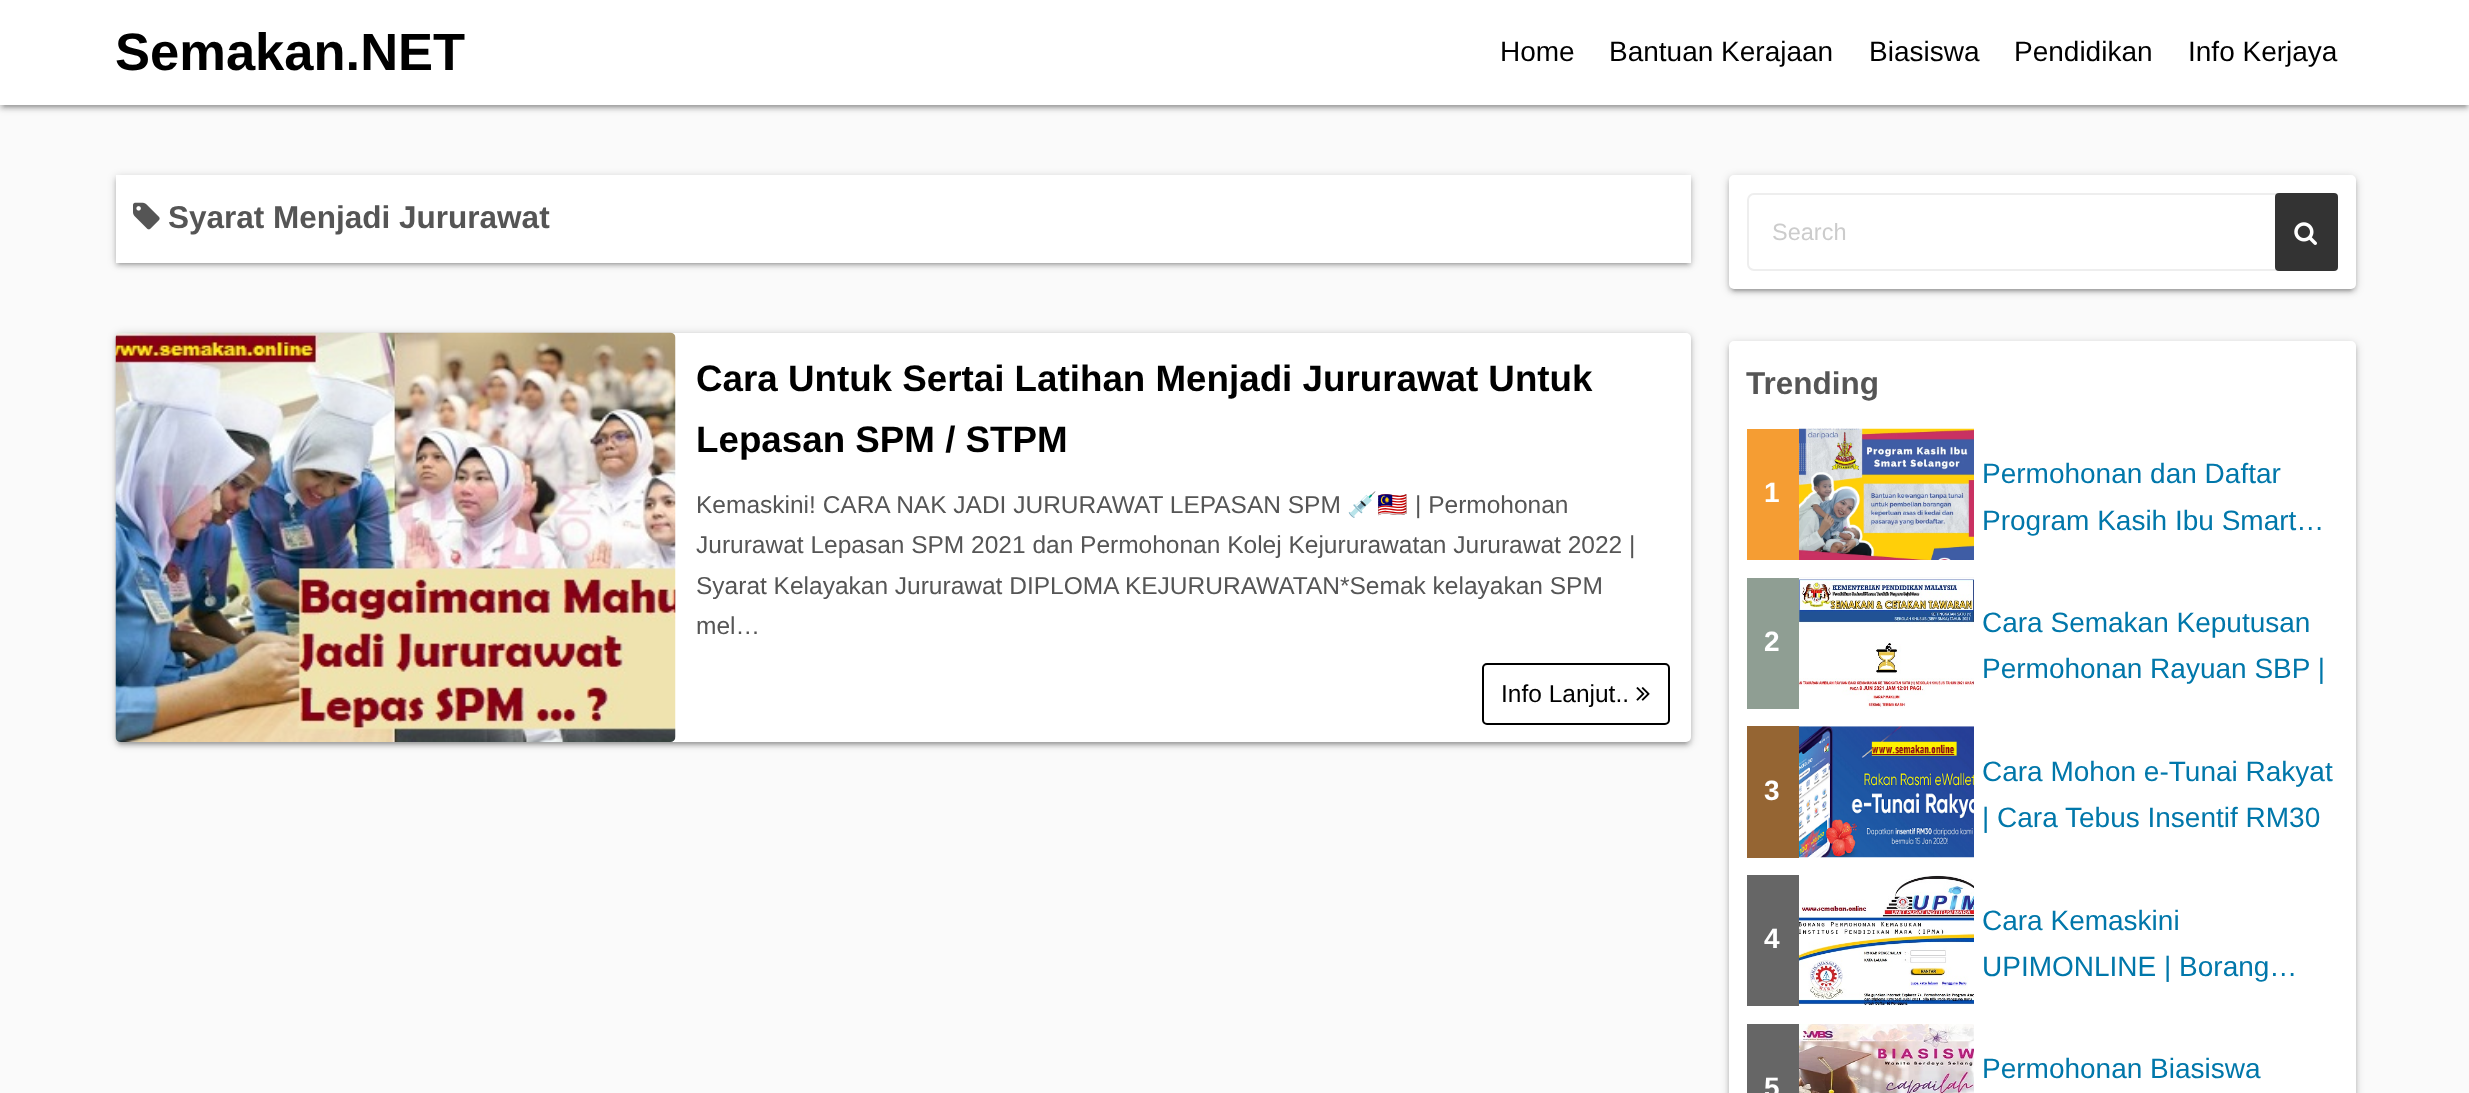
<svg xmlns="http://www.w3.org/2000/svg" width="2469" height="1093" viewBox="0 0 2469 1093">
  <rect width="100%" height="100%" fill="#fafafa"/>
  <path d="M0 2h2469v105H0z" fill="#00000033" filter="blur(4.5px)"/>
  <path d="M4 9h2462v98H4z" fill="#0000001f" filter="blur(1px)"/>
  <path d="M0 4h2469v105H0z" fill="#00000024" filter="blur(2px)"/>
  <path d="M0 0h2469v105H0z" fill="#fff"/>
  <path d="M116 177h1575v87H116z" fill="#00000033" filter="blur(4.5px)"/>
  <path d="M119 184h1568v80H119z" fill="#0000001f" filter="blur(1px)"/>
  <path d="M116 179h1575v87H116z" fill="#00000024" filter="blur(2px)"/>
  <path d="M116 175h1575v88H116z" fill="#fff"/>
  <image x="133" y="202" width="27" height="28" href="img/1.png"/>
  <rect x="116" y="334" width="1575" height="410" rx="5" fill="#00000033" filter="blur(4.5px)"/>
  <rect x="119" y="341" width="1568" height="403" rx="2" fill="#0000001f" filter="blur(1px)"/>
  <rect x="116" y="336" width="1575" height="410" rx="5" fill="#00000024" filter="blur(2px)"/>
  <rect x="116" y="333" width="1575" height="409" rx="5" fill="#fff"/>
  <image x="115" y="332" width="561" height="410" href="img/2.png"/>
  <rect x="1483" y="664" width="186" height="60" rx="4" fill="none" stroke="#000" stroke-width="2"/>
  <image x="1636" y="687" width="14" height="14" href="img/3.png"/>
  <rect x="1729" y="177" width="627" height="114" rx="5" fill="#00000033" filter="blur(4.5px)"/>
  <rect x="1733" y="184" width="619" height="107" rx="2" fill="#0000001f" filter="blur(1px)"/>
  <rect x="1729" y="179" width="627" height="113" rx="5" fill="#00000024" filter="blur(2px)"/>
  <rect x="1729" y="175" width="627" height="114" rx="5" fill="#fff"/>
  <rect x="1748" y="194" width="589" height="76" rx="6" fill="none" stroke="#eee" stroke-width="2"/>
  <rect x="2275" y="193" width="63" height="78" rx="4" fill="#333"/>
  <image x="2294" y="222" width="23" height="23" href="img/4.png"/>
  <rect x="1729" y="343" width="627" height="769" rx="5" fill="#00000033" filter="blur(4.5px)"/>
  <rect x="1729" y="345" width="627" height="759" rx="5" fill="#00000024" filter="blur(2px)"/>
  <rect x="1729" y="341" width="627" height="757" rx="5" fill="#fff"/>
  <path d="M1747 429h52v131H1747z" fill="#f59d33"/>
  <image x="1799" y="428" width="175" height="132" href="img/5.png"/>
  <path d="M1747 578h52v131H1747z" fill="#8f9e93"/>
  <image x="1799" y="577" width="175" height="132" href="img/6.png"/>
  <path d="M1747 726h52v132H1747z" fill="#956533"/>
  <image x="1799" y="726" width="175" height="132" href="img/7.png"/>
  <path d="M1747 875h52v131H1747z" fill="#666"/>
  <image x="1799" y="875" width="175" height="131" href="img/8.png"/>
  <image x="1799" y="1024" width="175" height="69" href="img/9.png"/>
  <path d="M1747 1024h52v69H1747z" fill="#666"/>
  <text x="115" y="70" font-family="Liberation Sans" font-size="52.5" font-weight="bold" fill="#000">Semakan.NET</text>
  <g font-family="Liberation Sans" font-size="28" fill="#000">
    <text x="1500" y="61">Home</text>
    <text x="1609" y="61">Bantuan Kerajaan</text>
    <text x="1869" y="61">Biasiswa</text>
    <text x="2014" y="61">Pendidikan</text>
    <text x="2188" y="61">Info Kerjaya</text>
  </g>
  <text x="168" y="228" font-family="Liberation Sans" font-size="31.5" font-weight="bold" fill="#555">Syarat Menjadi Jururawat</text>
  <g font-family="Liberation Sans" font-size="36.75" font-weight="bold" fill="#000">
    <text x="696" y="391">Cara Untuk Sertai Latihan Menjadi Jururawat Untuk</text>
    <text x="696" y="452">Lepasan SPM / STPM</text>
  </g>
  <text x="696" y="513" font-family="Liberation Sans" font-size="24.5" fill="#555">Kemaskini! CARA NAK JADI JURURAWAT LEPASAN SPM</text>
  <text x="1347" y="513" font-family="Noto Color Emoji" font-size="24.5" fill="#555">💉🇲🇾</text>
  <g font-family="Liberation Sans" font-size="24.5" fill="#555">
    <text x="1415" y="513">| Permohonan</text>
    <text x="696" y="553">Jururawat Lepasan SPM 2021 dan Permohonan Kolej Kejururawatan Jururawat 2022 |</text>
    <text x="696" y="594">Syarat Kelayakan Jururawat DIPLOMA KEJURURAWATAN*Semak kelayakan SPM</text>
    <text x="696" y="634">mel…</text>
  </g>
  <text x="1501" y="702" font-family="Liberation Sans" font-size="24.5" fill="#000">Info Lanjut..</text>
  <text x="1772" y="240" font-family="Liberation Sans" font-size="23.5" fill="#ccc">Search</text>
  <text x="1746" y="394" font-family="Liberation Sans" font-size="31.5" font-weight="bold" fill="#555">Trending</text>
  <text x="1764" y="502" font-family="Liberation Sans" font-size="28" font-weight="bold" fill="#fff">1</text>
  <g font-family="Liberation Sans" font-size="28" fill="#07a">
    <text x="1982" y="483">Permohonan dan Daftar</text>
    <text x="1982" y="530">Program Kasih Ibu Smart…</text>
  </g>
  <text x="1764" y="651" font-family="Liberation Sans" font-size="28" font-weight="bold" fill="#fff">2</text>
  <g font-family="Liberation Sans" font-size="28" fill="#07a">
    <text x="1982" y="632">Cara Semakan Keputusan</text>
    <text x="1982" y="678">Permohonan Rayuan SBP |</text>
  </g>
  <text x="1764" y="800" font-family="Liberation Sans" font-size="28" font-weight="bold" fill="#fff">3</text>
  <g font-family="Liberation Sans" font-size="28" fill="#07a">
    <text x="1982" y="781">Cara Mohon e-Tunai Rakyat</text>
    <text x="1982" y="827">| Cara Tebus Insentif RM30</text>
  </g>
  <text x="1764" y="948" font-family="Liberation Sans" font-size="28" font-weight="bold" fill="#fff">4</text>
  <g font-family="Liberation Sans" font-size="28" fill="#07a">
    <text x="1982" y="930">Cara Kemaskini</text>
    <text x="1982" y="976">UPIMONLINE | Borang…</text>
    <text x="1982" y="1078">Permohonan Biasiswa</text>
  </g>
  <text x="1764" y="1097" font-family="Liberation Sans" font-size="28" font-weight="bold" fill="#fff">5</text>
</svg>
